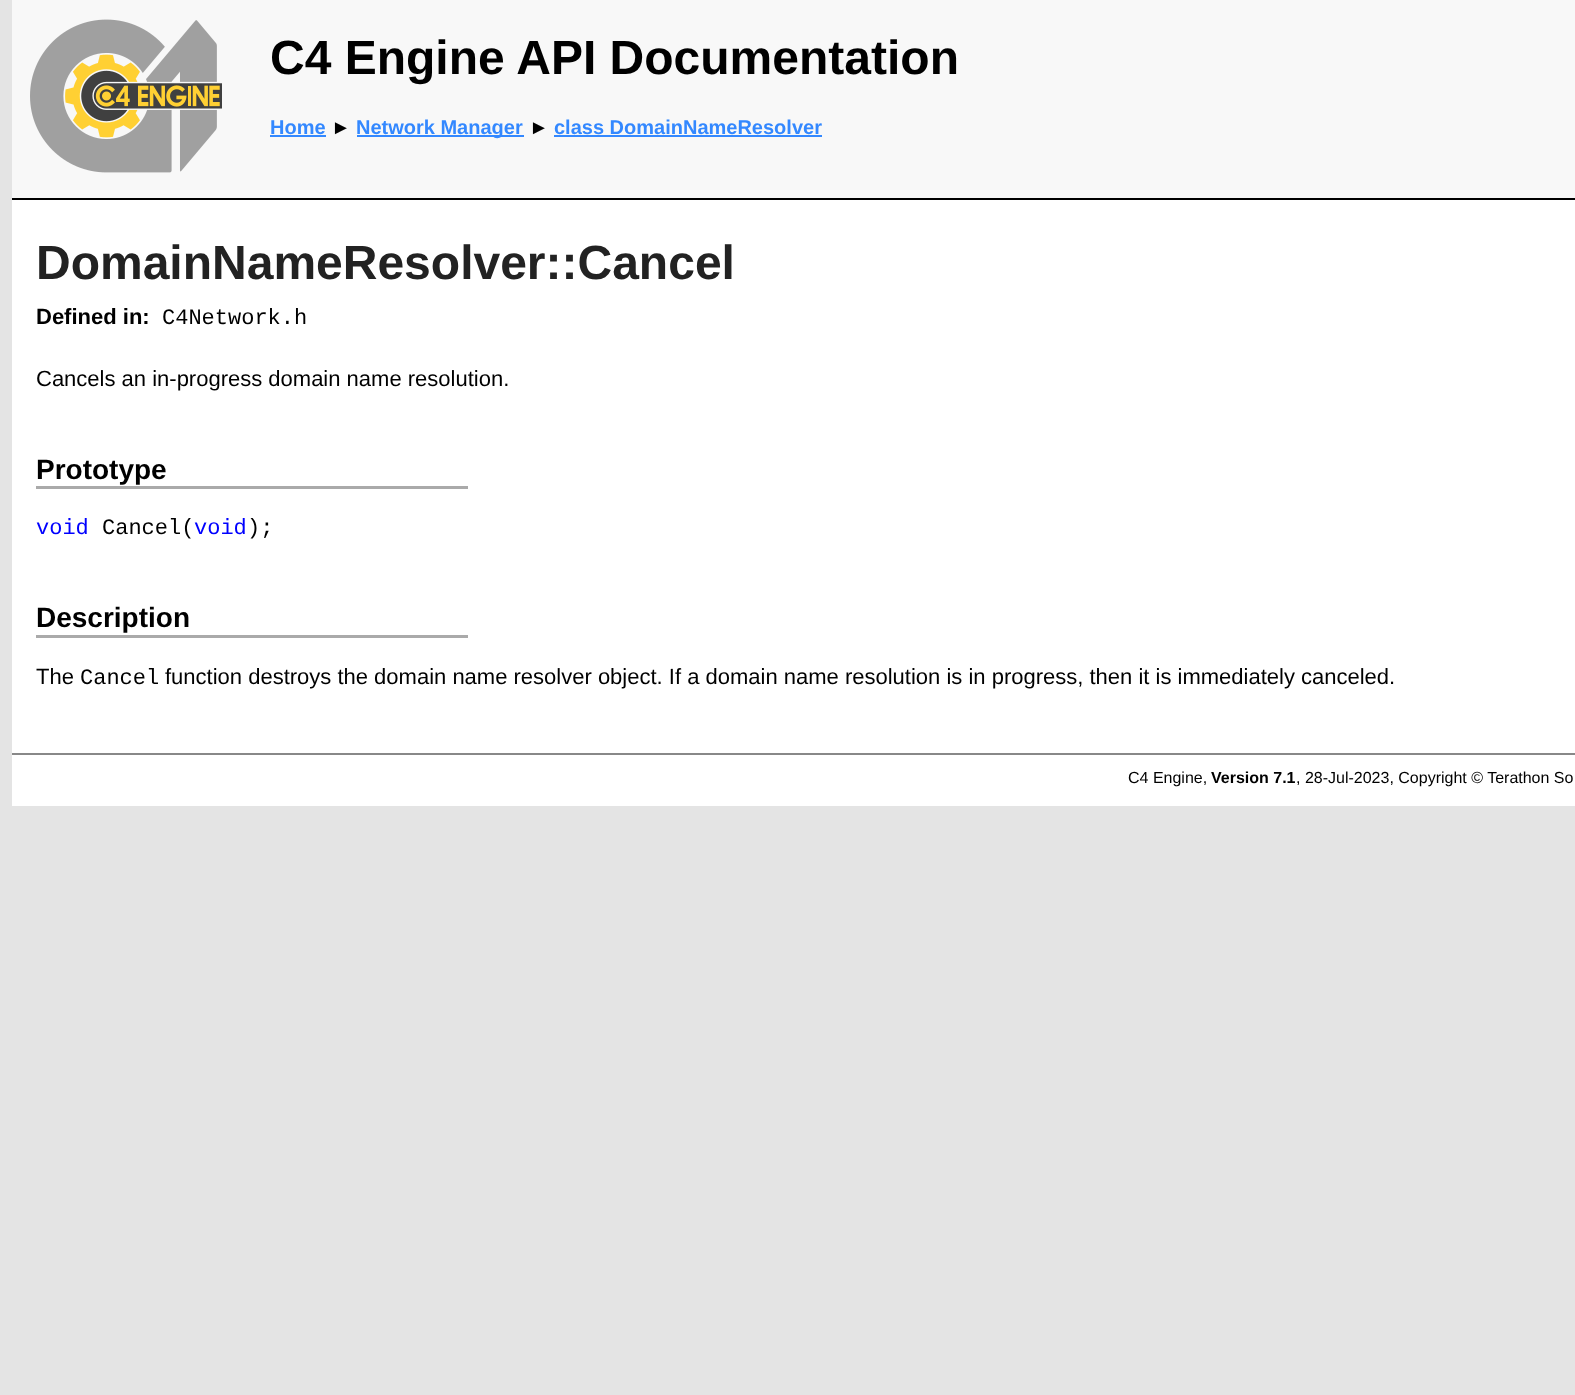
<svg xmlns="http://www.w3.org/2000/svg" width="1575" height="1395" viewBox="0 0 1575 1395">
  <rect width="100%" height="100%" fill="#e4e4e4"/>
  <path d="M12 200h1563v606H12z" fill="#fff"/>
  <path d="M12 0h1563v198H12z" fill="#f8f8f8"/>
  <path d="M12 198h1563v2H12z" fill="#000"/>
  <image x="30" y="19" width="192" height="154" href="img/1.png"/>
  <path d="M270 135h56v2H270z" fill="#38f"/>
  <path d="M357 135h167v2H357z" fill="#38f"/>
  <path d="M554 135h268v2H554z" fill="#38f"/>
  <path d="M36 486h432v3H36z" fill="#aaa"/>
  <path d="M36 635h432v3H36z" fill="#aaa"/>
  <path d="M12 753h1563v2H12z" fill="#888"/>
  <text x="270" y="74" font-family="Liberation Sans" font-size="48" font-weight="bold" fill="#000">C4 Engine API Documentation</text>
  <text x="270" y="134" font-family="Liberation Sans" font-size="20" font-weight="bold" fill="#38f">Home</text>
  <text x="331" y="134" font-family="Liberation Sans" font-size="20" font-weight="bold" fill="#000">►</text>
  <text x="356" y="134" font-family="Liberation Sans" font-size="20" font-weight="bold" fill="#38f">Network Manager</text>
  <text x="529" y="134" font-family="Liberation Sans" font-size="20" font-weight="bold" fill="#000">►</text>
  <text x="554" y="134" font-family="Liberation Sans" font-size="20" font-weight="bold" fill="#38f">class DomainNameResolver</text>
  <text x="36" y="279" font-family="Liberation Sans" font-size="48" font-weight="bold" fill="#222">DomainNameResolver::Cancel</text>
  <text x="36" y="324" font-family="Liberation Sans" font-size="22" font-weight="bold" fill="#000">Defined in:</text>
  <text x="162" y="324" font-family="Liberation Mono" font-size="22" fill="#000">C4Network.h</text>
  <text x="36" y="386" font-family="Liberation Sans" font-size="22" fill="#000">Cancels an in-progress domain name resolution.</text>
  <text x="36" y="479" font-family="Liberation Sans" font-size="28" font-weight="bold" fill="#000">Prototype</text>
  <text x="36" y="534" font-family="Liberation Mono" font-size="22" fill="#00f">void</text>
  <text x="102" y="534" font-family="Liberation Mono" font-size="22" fill="#000">Cancel(</text>
  <text x="194" y="534" font-family="Liberation Mono" font-size="22" fill="#00f">void</text>
  <text x="247" y="534" font-family="Liberation Mono" font-size="22" fill="#000">);</text>
  <text x="36" y="627" font-family="Liberation Sans" font-size="28" font-weight="bold" fill="#000">Description</text>
  <text x="36" y="684" font-family="Liberation Sans" font-size="22" fill="#000">The</text>
  <text x="80" y="684" font-family="Liberation Mono" font-size="22" fill="#000">Cancel</text>
  <text x="165" y="684" font-family="Liberation Sans" font-size="22" fill="#000">function destroys the domain name resolver object. If a domain name resolution is in progress, then it is immediately canceled.</text>
  <text x="1128" y="783" font-family="Liberation Sans" font-size="16" fill="#000">C4 Engine,</text>
  <text x="1211" y="783" font-family="Liberation Sans" font-size="16" font-weight="bold" fill="#000">Version 7.1</text>
  <text x="1296" y="783" font-family="Liberation Sans" font-size="16" fill="#000">, 28-Jul-2023, Copyright © Terathon So</text>
</svg>
